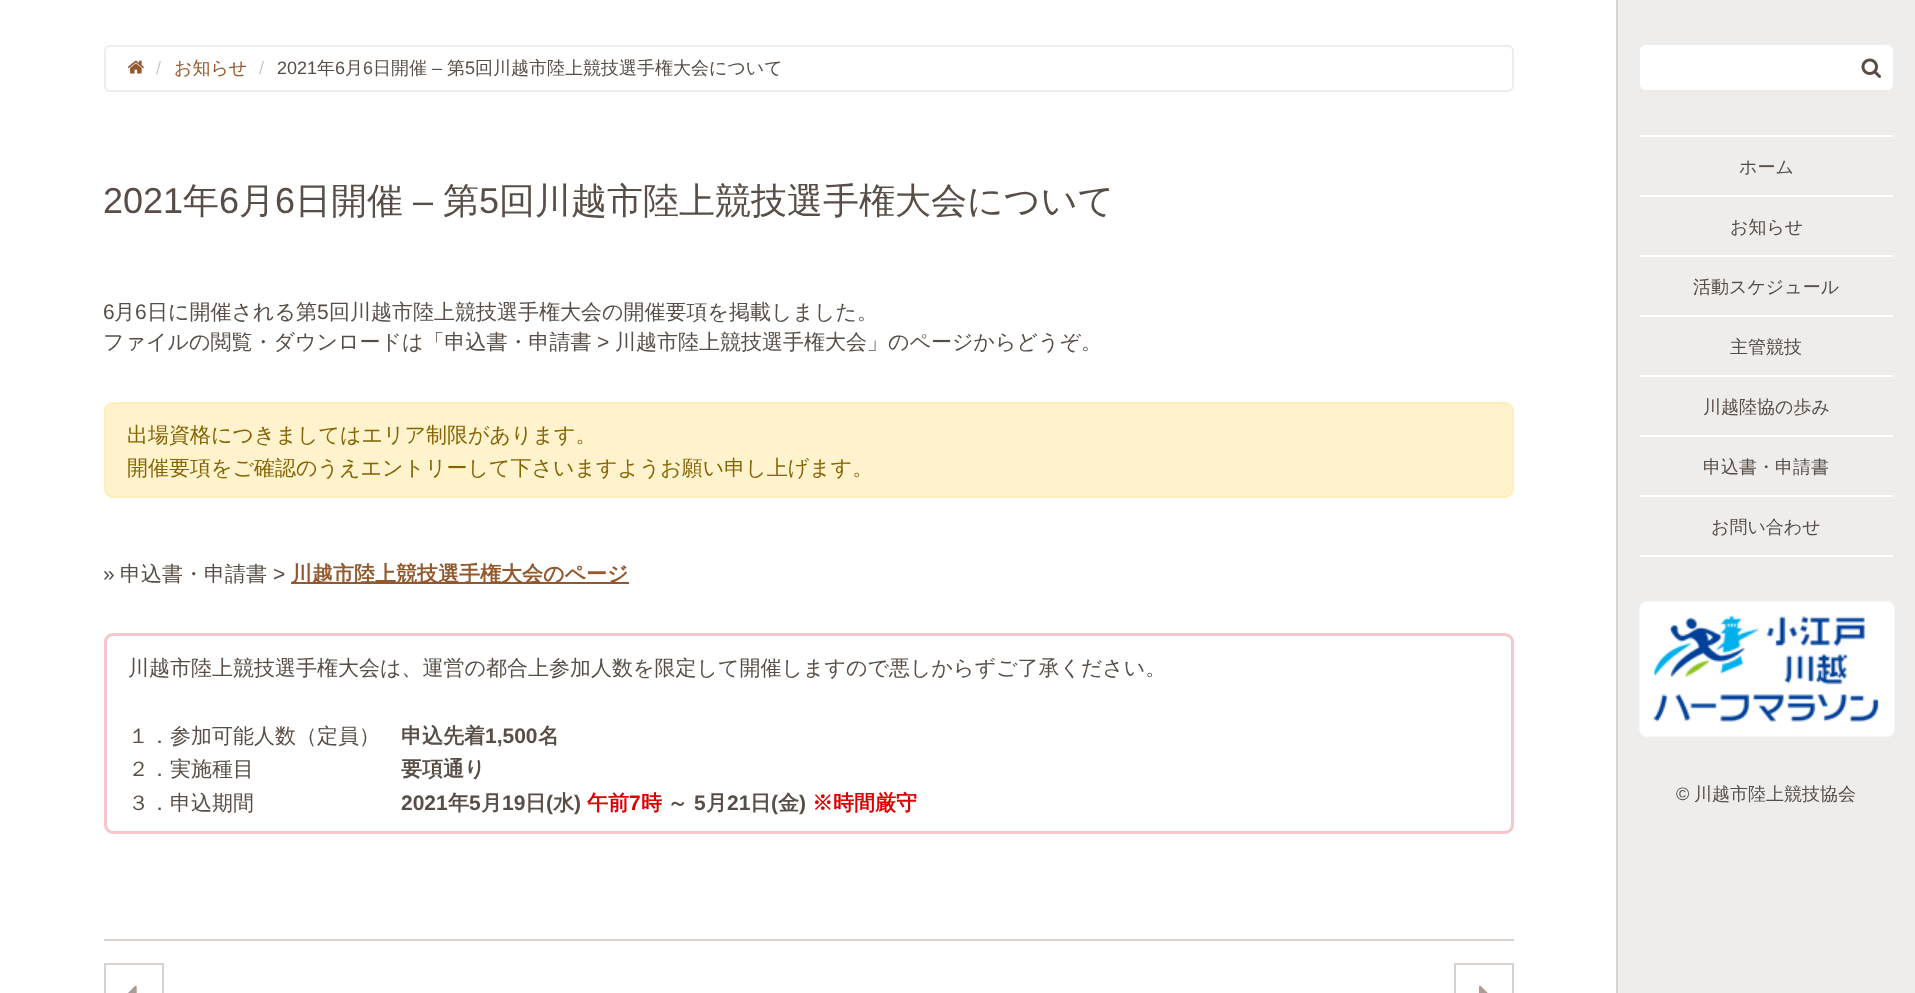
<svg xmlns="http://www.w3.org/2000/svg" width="1915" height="993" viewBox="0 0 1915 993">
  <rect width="100%" height="100%" fill="#fff"/>
  <rect x="105" y="46" width="1408" height="45" rx="5" fill="none" stroke="#eeedec" stroke-width="2"/>
  <image x="127" y="60" width="17" height="14" href="img/1.png"/>
  <rect x="105" y="403" width="1408" height="94" rx="8" fill="#fff3cd" stroke="#ffeeba" stroke-width="2"/>
  <path d="M291 582h338v2H291z" fill="#93582d"/>
  <rect x="105.5" y="634.5" width="1407" height="198" rx="7.5" fill="none" stroke="#f5c6cb" stroke-width="3"/>
  <path d="M104 939h1410v2H104z" fill="#d9d3d0"/>
  <path d="M105 964h58v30H105z" fill="none" stroke="#d9d3d0" stroke-width="2"/>
  <image x="128" y="985" width="9" height="8" href="img/2.png"/>
  <path d="M1455 964h58v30H1455z" fill="none" stroke="#d9d3d0" stroke-width="2"/>
  <image x="1479" y="985" width="9" height="8" href="img/3.png"/>
  <path d="M1618 0h297v993H1618z" fill="#eeedec"/>
  <path d="M1616 0h2v993H1616z" fill="#d9d3d0"/>
  <rect x="1640" y="45" width="253" height="45" rx="6" fill="#fff"/>
  <image x="1861" y="58" width="20" height="20" href="img/4.png"/>
  <path d="M1640 135h253v2H1640z" fill="#fff"/>
  <path d="M1640 195h253v2H1640z" fill="#fff"/>
  <path d="M1640 255h253v2H1640z" fill="#fff"/>
  <path d="M1640 315h253v2H1640z" fill="#fff"/>
  <path d="M1640 375h253v2H1640z" fill="#fff"/>
  <path d="M1640 435h253v2H1640z" fill="#fff"/>
  <path d="M1640 495h253v2H1640z" fill="#fff"/>
  <path d="M1640 555h253v2H1640z" fill="#fff"/>
  <image x="1639" y="601" width="256" height="136" href="img/5.png"/>
  <text x="156" y="74" font-family="Liberation Sans" font-size="18" fill="#ccc">/</text>
  <text x="174" y="74" font-family="WenQuanYi Zen Hei" font-size="18" font-weight="500" fill="#93582d">お知らせ</text>
  <text x="259" y="74" font-family="Liberation Sans" font-size="18" fill="#ccc">/</text>
  <text x="277" y="74" font-family="Liberation Sans" font-size="18" fill="#584e47">2021</text>
  <text x="317" y="74" font-family="WenQuanYi Zen Hei" font-size="18" font-weight="500" fill="#584e47">年</text>
  <text x="335" y="74" font-family="Liberation Sans" font-size="18" fill="#584e47">6</text>
  <text x="345" y="74" font-family="WenQuanYi Zen Hei" font-size="18" font-weight="500" fill="#584e47">月</text>
  <text x="363" y="74" font-family="Liberation Sans" font-size="18" fill="#584e47">6</text>
  <text x="373" y="74" font-family="WenQuanYi Zen Hei" font-size="18" font-weight="500" fill="#584e47">日開催</text>
  <text x="432" y="74" font-family="Liberation Sans" font-size="18" fill="#584e47">–</text>
  <text x="447" y="74" font-family="WenQuanYi Zen Hei" font-size="18" font-weight="500" fill="#584e47">第</text>
  <text x="465" y="74" font-family="Liberation Sans" font-size="18" fill="#584e47">5</text>
  <text x="475" y="74" font-family="WenQuanYi Zen Hei" font-size="18" font-weight="500" fill="#584e47">回川越市陸上競技選手権大会について</text>
  <text x="103" y="213" font-family="Liberation Sans" font-size="36" fill="#584e47">2021</text>
  <text x="183" y="213" font-family="WenQuanYi Zen Hei" font-size="36" font-weight="500" fill="#584e47">年</text>
  <text x="219" y="213" font-family="Liberation Sans" font-size="36" fill="#584e47">6</text>
  <text x="239" y="213" font-family="WenQuanYi Zen Hei" font-size="36" font-weight="500" fill="#584e47">月</text>
  <text x="275" y="213" font-family="Liberation Sans" font-size="36" fill="#584e47">6</text>
  <text x="295" y="213" font-family="WenQuanYi Zen Hei" font-size="36" font-weight="500" fill="#584e47">日開催</text>
  <text x="413" y="213" font-family="Liberation Sans" font-size="36" fill="#584e47">–</text>
  <text x="443" y="213" font-family="WenQuanYi Zen Hei" font-size="36" font-weight="500" fill="#584e47">第</text>
  <text x="479" y="213" font-family="Liberation Sans" font-size="36" fill="#584e47">5</text>
  <text x="499" y="213" font-family="WenQuanYi Zen Hei" font-size="36" font-weight="500" fill="#584e47">回川越市陸上競技選手権大会について</text>
  <text x="103" y="319" font-family="Liberation Sans" font-size="21" fill="#584e47">6</text>
  <text x="114" y="319" font-family="WenQuanYi Zen Hei" font-size="21" font-weight="500" fill="#584e47">月</text>
  <text x="135" y="319" font-family="Liberation Sans" font-size="21" fill="#584e47">6</text>
  <text x="147" y="319" font-family="WenQuanYi Zen Hei" font-size="21" font-weight="500" fill="#584e47">日に開催される第</text>
  <text x="317" y="319" font-family="Liberation Sans" font-size="21" fill="#584e47">5</text>
  <g font-family="WenQuanYi Zen Hei" font-size="21" font-weight="500" fill="#584e47">
    <text x="329" y="319">回川越市陸上競技選手権大会の開催要項を掲載しました。</text>
    <text x="103" y="349">ファイルの閲覧・ダウンロードは「申込書・申請書</text>
  </g>
  <text x="597" y="349" font-family="Liberation Sans" font-size="21" fill="#584e47">&gt;</text>
  <text x="615" y="349" font-family="WenQuanYi Zen Hei" font-size="21" font-weight="500" fill="#584e47">川越市陸上競技選手権大会」のページからどうぞ。</text>
  <g font-family="WenQuanYi Zen Hei" font-size="21" font-weight="500" fill="#856404">
    <text x="127" y="442">出場資格につきましてはエリア制限があります。</text>
    <text x="127" y="475">開催要項をご確認のうえエントリーして下さいますようお願い申し上げます。</text>
  </g>
  <text x="103" y="581" font-family="Liberation Sans" font-size="21" fill="#584e47">»</text>
  <text x="120" y="581" font-family="WenQuanYi Zen Hei" font-size="21" font-weight="500" fill="#584e47">申込書・申請書</text>
  <text x="273" y="581" font-family="Liberation Sans" font-size="21" fill="#584e47">&gt;</text>
  <text x="291" y="581" font-family="WenQuanYi Zen Hei" font-size="21" font-weight="bold" fill="#93582d">川越市陸上競技選手権大会のページ</text>
  <g font-family="WenQuanYi Zen Hei" font-size="21" font-weight="500" fill="#584e47">
    <text x="128" y="675">川越市陸上競技選手権大会は、運営の都合上参加人数を限定して開催しますので悪しからずご了承ください。</text>
    <text x="128" y="743">１．参加可能人数（定員）</text>
  </g>
  <text x="401" y="743" font-family="WenQuanYi Zen Hei" font-size="21" font-weight="bold" fill="#584e47">申込先着</text>
  <text x="485" y="743" font-family="Liberation Sans" font-size="21" font-weight="bold" fill="#584e47">1,500</text>
  <text x="538" y="743" font-family="WenQuanYi Zen Hei" font-size="21" font-weight="bold" fill="#584e47">名</text>
  <text x="128" y="776" font-family="WenQuanYi Zen Hei" font-size="21" font-weight="500" fill="#584e47">２．実施種目</text>
  <text x="401" y="776" font-family="WenQuanYi Zen Hei" font-size="21" font-weight="bold" fill="#584e47">要項通り</text>
  <text x="128" y="810" font-family="WenQuanYi Zen Hei" font-size="21" font-weight="500" fill="#584e47">３．申込期間</text>
  <text x="401" y="810" font-family="Liberation Sans" font-size="21" font-weight="bold" fill="#584e47">2021</text>
  <text x="448" y="810" font-family="WenQuanYi Zen Hei" font-size="21" font-weight="bold" fill="#584e47">年</text>
  <text x="469" y="810" font-family="Liberation Sans" font-size="21" font-weight="bold" fill="#584e47">5</text>
  <text x="481" y="810" font-family="WenQuanYi Zen Hei" font-size="21" font-weight="bold" fill="#584e47">月</text>
  <text x="502" y="810" font-family="Liberation Sans" font-size="21" font-weight="bold" fill="#584e47">19</text>
  <text x="525" y="810" font-family="WenQuanYi Zen Hei" font-size="21" font-weight="bold" fill="#584e47">日</text>
  <text x="546" y="810" font-family="Liberation Sans" font-size="21" font-weight="bold" fill="#584e47">(</text>
  <text x="553" y="810" font-family="WenQuanYi Zen Hei" font-size="21" font-weight="bold" fill="#584e47">水</text>
  <text x="574" y="810" font-family="Liberation Sans" font-size="21" font-weight="bold" fill="#584e47">)</text>
  <text x="587" y="810" font-family="WenQuanYi Zen Hei" font-size="21" font-weight="bold" fill="#d00">午前</text>
  <text x="629" y="810" font-family="Liberation Sans" font-size="21" font-weight="bold" fill="#d00">7</text>
  <text x="641" y="810" font-family="WenQuanYi Zen Hei" font-size="21" font-weight="bold" fill="#d00">時</text>
  <text x="667" y="810" font-family="WenQuanYi Zen Hei" font-size="21" font-weight="bold" fill="#584e47">～</text>
  <text x="694" y="810" font-family="Liberation Sans" font-size="21" font-weight="bold" fill="#584e47">5</text>
  <text x="706" y="810" font-family="WenQuanYi Zen Hei" font-size="21" font-weight="bold" fill="#584e47">月</text>
  <text x="727" y="810" font-family="Liberation Sans" font-size="21" font-weight="bold" fill="#584e47">21</text>
  <text x="750" y="810" font-family="WenQuanYi Zen Hei" font-size="21" font-weight="bold" fill="#584e47">日</text>
  <text x="771" y="810" font-family="Liberation Sans" font-size="21" font-weight="bold" fill="#584e47">(</text>
  <text x="778" y="810" font-family="WenQuanYi Zen Hei" font-size="21" font-weight="bold" fill="#584e47">金</text>
  <text x="799" y="810" font-family="Liberation Sans" font-size="21" font-weight="bold" fill="#584e47">)</text>
  <text x="812" y="810" font-family="WenQuanYi Zen Hei" font-size="21" font-weight="bold" fill="#d00">※時間厳守</text>
  <g font-family="WenQuanYi Zen Hei" font-size="18" font-weight="500" fill="#584e47">
    <text x="1739" y="173">ホーム</text>
    <text x="1730" y="233">お知らせ</text>
    <text x="1693" y="293">活動スケジュール</text>
    <text x="1730" y="353">主管競技</text>
    <text x="1703" y="413">川越陸協の歩み</text>
    <text x="1703" y="473">申込書・申請書</text>
    <text x="1711" y="533">お問い合わせ</text>
  </g>
  <text x="1676" y="800" font-family="Liberation Sans" font-size="18" fill="#584e47">©</text>
  <text x="1694" y="800" font-family="WenQuanYi Zen Hei" font-size="18" font-weight="500" fill="#584e47">川越市陸上競技協会</text>
</svg>
